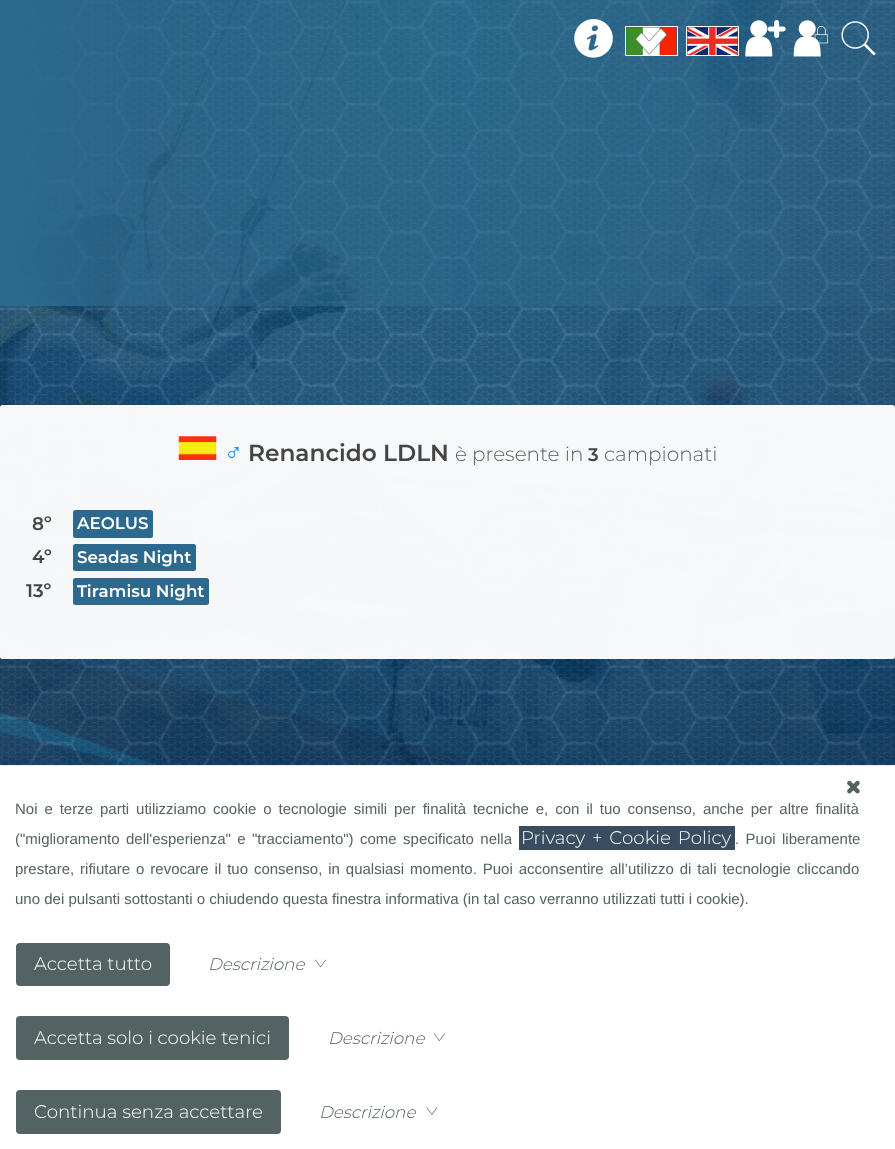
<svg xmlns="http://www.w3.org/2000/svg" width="895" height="1149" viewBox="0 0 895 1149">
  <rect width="100%" height="100%" fill="#fff"/>
  <image x="0" y="0" width="895" height="765" href="img/1.png"/>
  <image x="574" y="19" width="39" height="39" href="img/2.png"/>
  <path d="M625.5 26.5h52v29H625.5z" fill="none" stroke="#fff"/>
  <image x="626" y="27" width="51" height="28" href="img/3.png"/>
  <path d="M686.5 26.5h52v29H686.5z" fill="none" stroke="#fff"/>
  <image x="687" y="27" width="51" height="28" href="img/4.png"/>
  <image x="745" y="20" width="41" height="37" href="img/5.png"/>
  <image x="793" y="20" width="35" height="37" href="img/6.png"/>
  <image x="841" y="21" width="35" height="35" href="img/7.png"/>
  <rect y="405" width="895" height="254" rx="2.5" fill="#fffffff5"/>
  <path d="M178.5 435.5h39v25H178.5z" fill="none" stroke="#fff"/>
  <image x="178" y="436" width="39" height="24" href="img/8.png"/>
  <rect x="73" y="510" width="80" height="28" rx="2.5" fill="#2d698e"/>
  <rect x="73" y="544" width="123" height="27" rx="2.5" fill="#2d698e"/>
  <rect x="73" y="578" width="136" height="27" rx="2.5" fill="#2d698e"/>
  <path d="M0 765h895v1H0z" fill="#eaeaea"/>
  <image x="847" y="780" width="13" height="14" href="img/9.png"/>
  <path d="M519 826h216v24H519z" fill="#384d60"/>
  <rect x="16" y="943" width="154" height="43" rx="4" fill="#536262"/>
  <image x="315" y="959" width="11" height="9" href="img/10.png"/>
  <rect x="16" y="1016" width="273" height="44" rx="4" fill="#536262"/>
  <image x="433" y="1033" width="12" height="8" href="img/11.png"/>
  <rect x="16" y="1090" width="265" height="44" rx="4" fill="#536262"/>
  <image x="426" y="1107" width="12" height="8" href="img/12.png"/>
  <text x="224" y="461" font-family="Liberation Sans" font-size="25" fill="#0080ff">♂</text>
  <text x="248" y="461" font-family="Montserrat" font-size="23.25" font-weight="600" fill="#444">Renancido LDLN</text>
  <text x="455" y="461" font-family="Montserrat" font-size="20" font-weight="300" fill="#536262">è presente in</text>
  <text x="588" y="461" font-family="Montserrat" font-size="18.3" font-weight="600" fill="#444">3</text>
  <text x="604" y="461" font-family="Montserrat" font-size="20" font-weight="300" fill="#536262">campionati</text>
  <text x="32" y="530" font-family="Montserrat" font-size="18.3" font-weight="600" fill="#444">8º</text>
  <text x="77" y="529" font-family="Montserrat" font-size="16.75" font-weight="600" fill="#fff">AEOLUS</text>
  <text x="32" y="563" font-family="Montserrat" font-size="18.3" font-weight="600" fill="#444">4º</text>
  <text x="77" y="563" font-family="Montserrat" font-size="16.75" font-weight="600" fill="#fff">Seadas Night</text>
  <text x="26" y="597" font-family="Montserrat" font-size="18.3" font-weight="600" fill="#444">13º</text>
  <text x="77" y="597" font-family="Montserrat" font-size="16.75" font-weight="600" fill="#fff">Tiramisu Night</text>
  <g font-family="Liberation Sans" font-size="15" fill="#536262">
    <text x="15" y="814" word-spacing="2.75">Noi e terze parti utilizziamo cookie o tecnologie simili per finalità tecniche e, con il tuo consenso, anche per altre finalità</text>
    <text x="15" y="844" word-spacing="2.25">("miglioramento dell'esperienza" e "tracciamento") come specificato nella</text>
  </g>
  <text x="521" y="844" word-spacing="2.25" font-family="Montserrat" font-size="18.3" font-weight="300" fill="#fff">Privacy + Cookie Policy</text>
  <g font-family="Liberation Sans" font-size="15" fill="#536262">
    <text x="735" y="844" word-spacing="2.25">. Puoi liberamente</text>
    <text x="15" y="874" word-spacing="1.75">prestare, rifiutare o revocare il tuo consenso, in qualsiasi momento. Puoi acconsentire all’utilizzo di tali tecnologie cliccando</text>
    <text x="15" y="904">uno dei pulsanti sottostanti o chiudendo questa finestra informativa (in tal caso verranno utilizzati tutti i cookie).</text>
  </g>
  <text x="34" y="970" font-family="Montserrat" font-size="18.3" font-weight="300" fill="#fff">Accetta tutto</text>
  <text x="208" y="970" font-family="Montserrat" font-size="16.75" font-weight="300" font-style="italic" fill="#536262">Descrizione</text>
  <text x="34" y="1044" font-family="Montserrat" font-size="18.3" font-weight="300" fill="#fff">Accetta solo i cookie tenici</text>
  <text x="328" y="1044" font-family="Montserrat" font-size="16.75" font-weight="300" font-style="italic" fill="#536262">Descrizione</text>
  <text x="34" y="1118" font-family="Montserrat" font-size="18.3" font-weight="300" fill="#fff">Continua senza accettare</text>
  <text x="319" y="1118" font-family="Montserrat" font-size="16.75" font-weight="300" font-style="italic" fill="#536262">Descrizione</text>
</svg>
